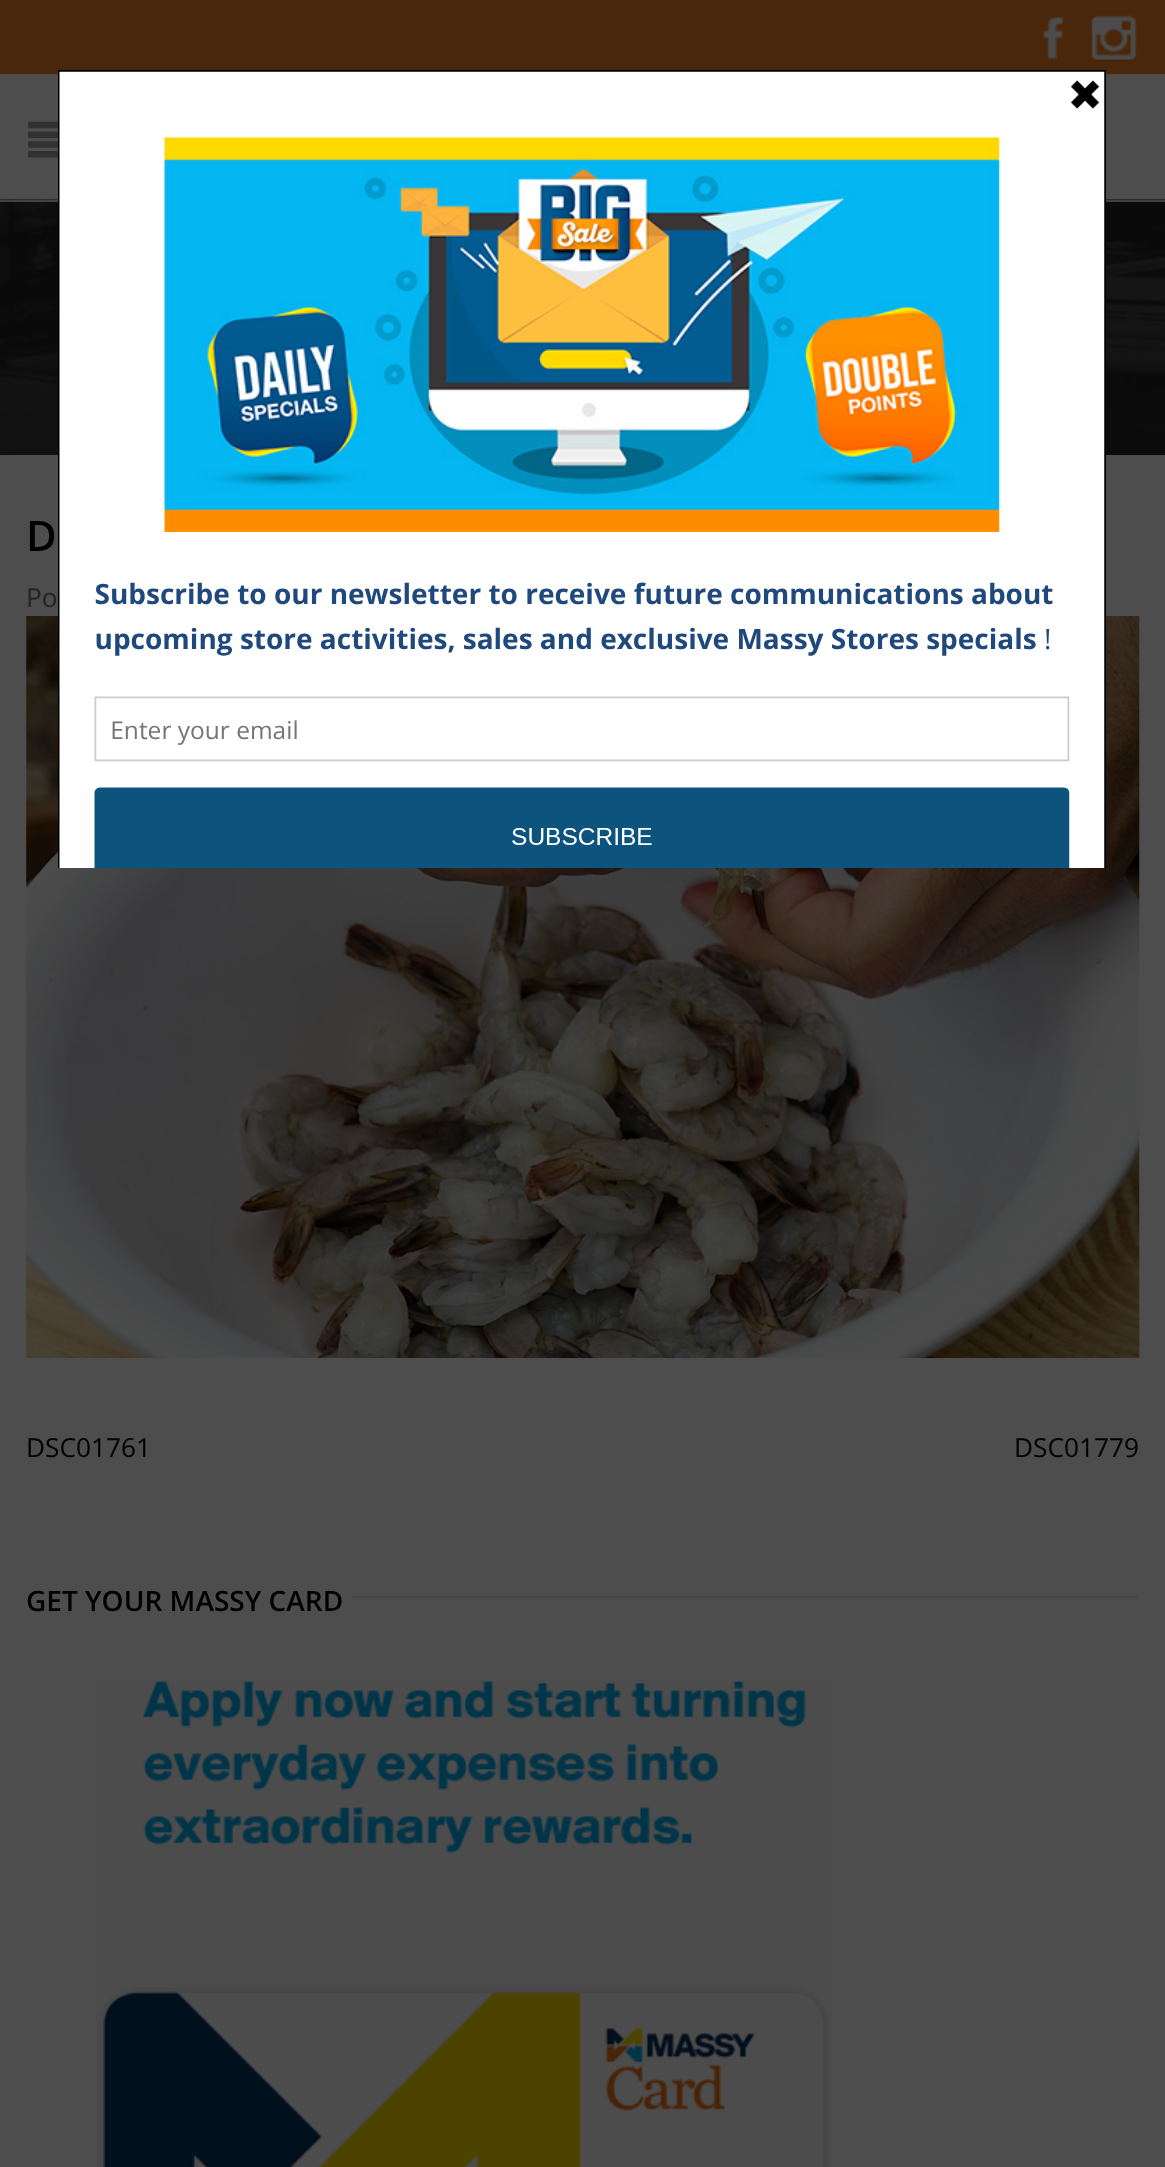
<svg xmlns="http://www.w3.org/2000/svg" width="1165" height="2167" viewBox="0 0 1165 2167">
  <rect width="100%" height="100%" fill="#4d4d4d"/>
  <path d="M0 0h1165v74H0z" fill="#4a270a"/>
  <image x="0" y="199" width="1165" height="256" href="img/5.png"/>
  <path d="M0 200h1165v2H0z" fill="#424242"/>
  <image x="26" y="616" width="1114" height="742" href="img/6.png"/>
  <image x="58" y="70" width="1048" height="798" href="img/1.png"/>
  <image x="1042" y="17" width="23" height="43" href="img/2.png"/>
  <image x="1091" y="15" width="46" height="45" href="img/3.png"/>
  <image x="28" y="121" width="30" height="37" href="img/4.png"/>
  <path d="M352 1596h787v2H352z" fill="#454545"/>
  <image x="96" y="1679" width="736" height="488" href="img/7.png"/>
  <text x="26" y="551" font-family="Open Sans" font-size="42" font-weight="600" fill="#000">D</text>
  <text x="26" y="607" font-family="Open Sans" font-size="26.25" fill="#232323">Po</text>
  <g font-family="Open Sans" font-size="26.25" fill="#000">
    <text x="26" y="1457">DSC01761</text>
    <text x="1014" y="1457">DSC01779</text>
  </g>
  <text x="26" y="1611" font-family="Open Sans" font-size="28" font-weight="600" fill="#000">GET YOUR MASSY CARD</text>
</svg>
